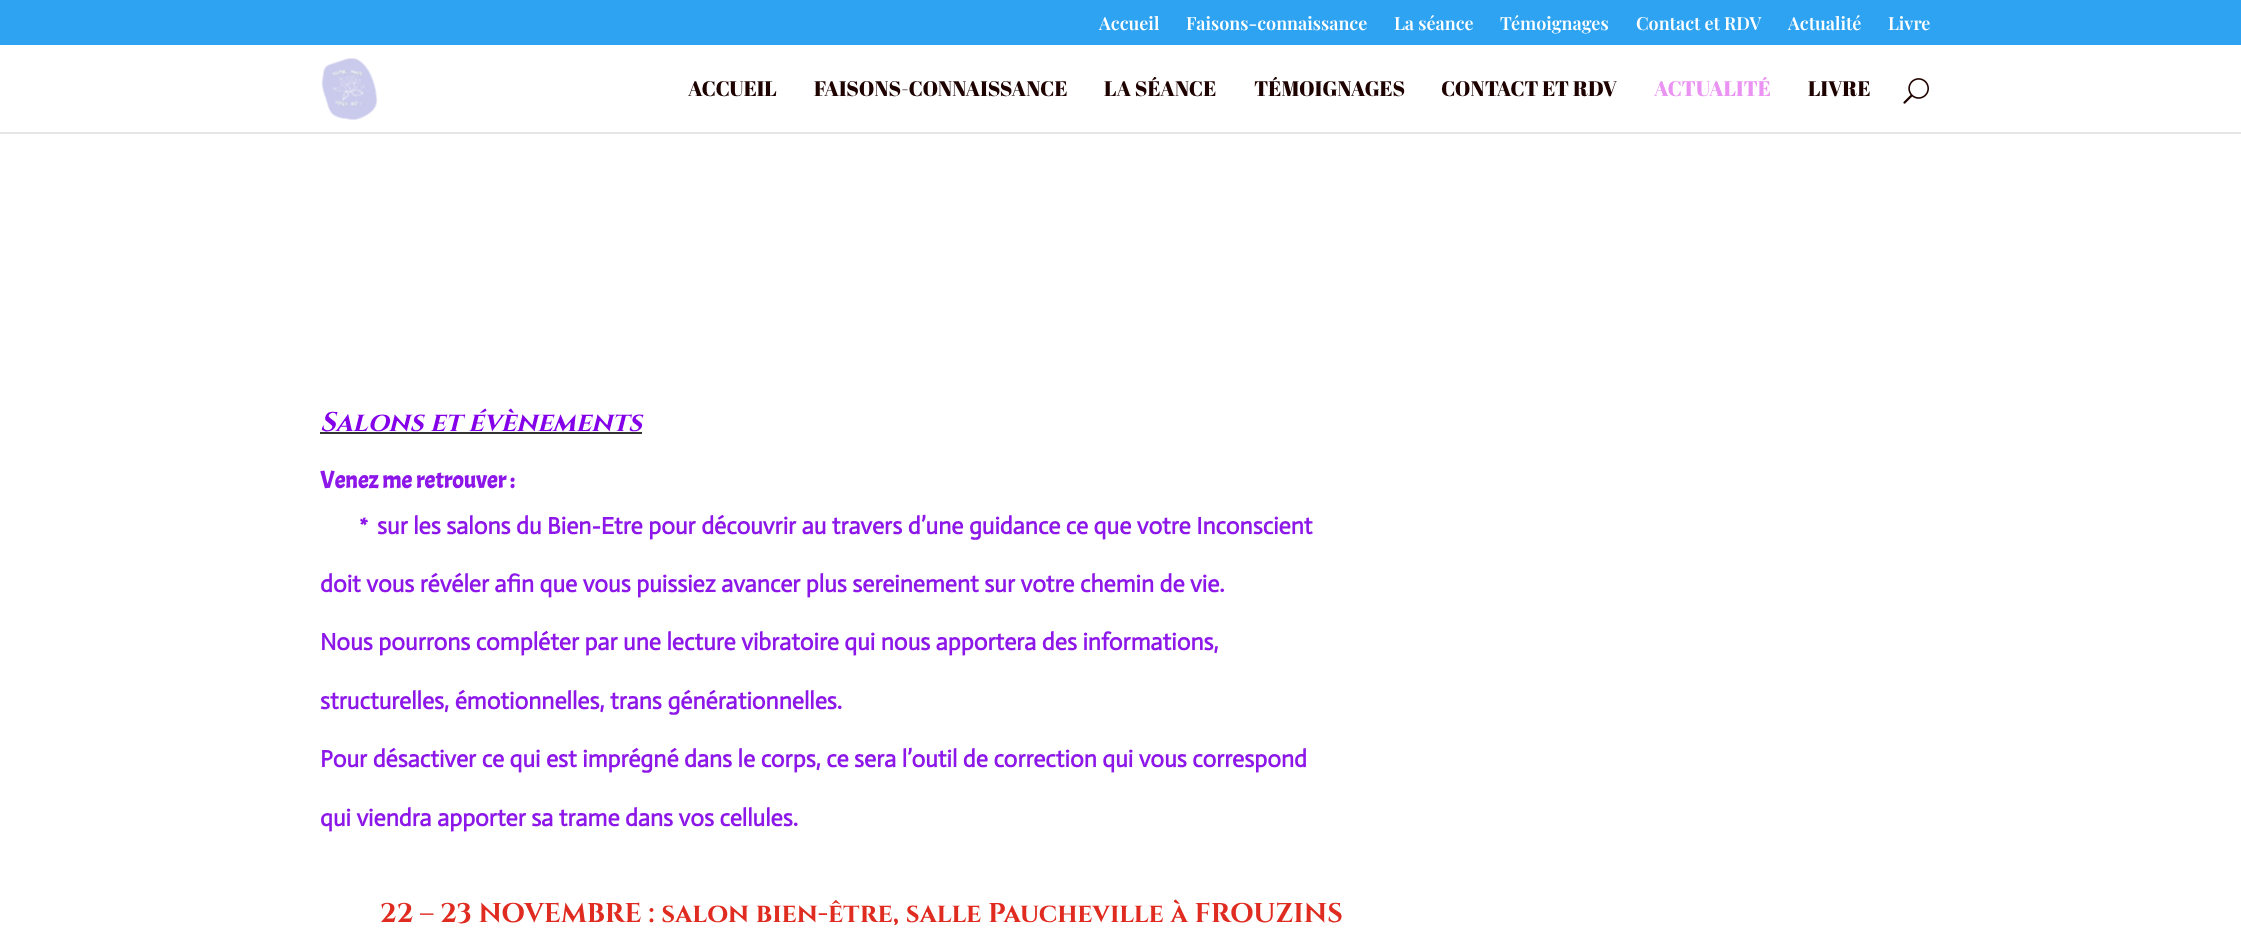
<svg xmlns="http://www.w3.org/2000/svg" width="2241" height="941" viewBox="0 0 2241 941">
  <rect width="100%" height="100%" fill="#fff"/>
  <path d="M0 0h2241v45H0z" fill="#2ea3f2"/>
  <path d="M0 132h2241v2H0z" fill="#e6e6e6"/>
  <image x="321" y="58" width="57" height="62" href="img/1.png"/>
  <image x="1903" y="78" width="26" height="26" href="img/2.png"/>
  <path d="M320 432h322v2H320z" fill="#333"/>
  <g font-family="Playfair Display" font-size="18" font-weight="600" fill="#fff">
    <text x="1099" y="30">Accueil</text>
    <text x="1186" y="30">Faisons-connaissance</text>
    <text x="1394" y="30">La séance</text>
    <text x="1500" y="30">Témoignages</text>
    <text x="1636" y="30">Contact et RDV</text>
    <text x="1788" y="30">Actualité</text>
    <text x="1888" y="30">Livre</text>
  </g>
  <g font-family="Abril Fatface" font-size="21" fill="#1e0200">
    <text x="688" y="96">ACCUEIL</text>
    <text x="814" y="96">FAISONS-CONNAISSANCE</text>
    <text x="1104" y="96">LA SÉANCE</text>
    <text x="1254" y="96">TÉMOIGNAGES</text>
    <text x="1441" y="96">CONTACT ET RDV</text>
  </g>
  <text x="1654" y="96" font-family="Abril Fatface" font-size="21" fill="#ea93f2">ACTUALITÉ</text>
  <text x="1808" y="96" font-family="Abril Fatface" font-size="21" fill="#1e0200">LIVRE</text>
  <text x="320" y="431" font-family="Cinzel" font-size="27" font-weight="bold" font-style="italic" fill="#8300e9">Salons et évènements</text>
  <g font-family="Acme" font-size="24" font-weight="bold" fill="#8d17e8">
    <text x="320" y="488">Venez me retrouver :</text>
    <text x="360" y="534">*</text>
  </g>
  <g font-family="Actor" font-size="24" font-weight="bold" fill="#8d17e8">
    <text x="377" y="534">sur les salons du Bien-Etre pour découvrir au travers d’une guidance ce que votre Inconscient</text>
    <text x="320" y="592">doit vous révéler afin que vous puissiez avancer plus sereinement sur votre chemin de vie.</text>
    <text x="320" y="650">Nous pourrons compléter par une lecture vibratoire qui nous apportera des informations,</text>
    <text x="320" y="709">structurelles, émotionnelles, trans générationnelles.</text>
    <text x="320" y="767">Pour désactiver ce qui est imprégné dans le corps, ce sera l’outil de correction qui vous correspond</text>
    <text x="320" y="826">qui viendra apporter sa trame dans vos cellules.</text>
  </g>
  <text x="380" y="922" font-family="Cinzel" font-size="27" font-weight="bold" fill="#e02b20">22 – 23 NOVEMBRE : salon bien-être, salle Paucheville à FROUZINS</text>
</svg>
